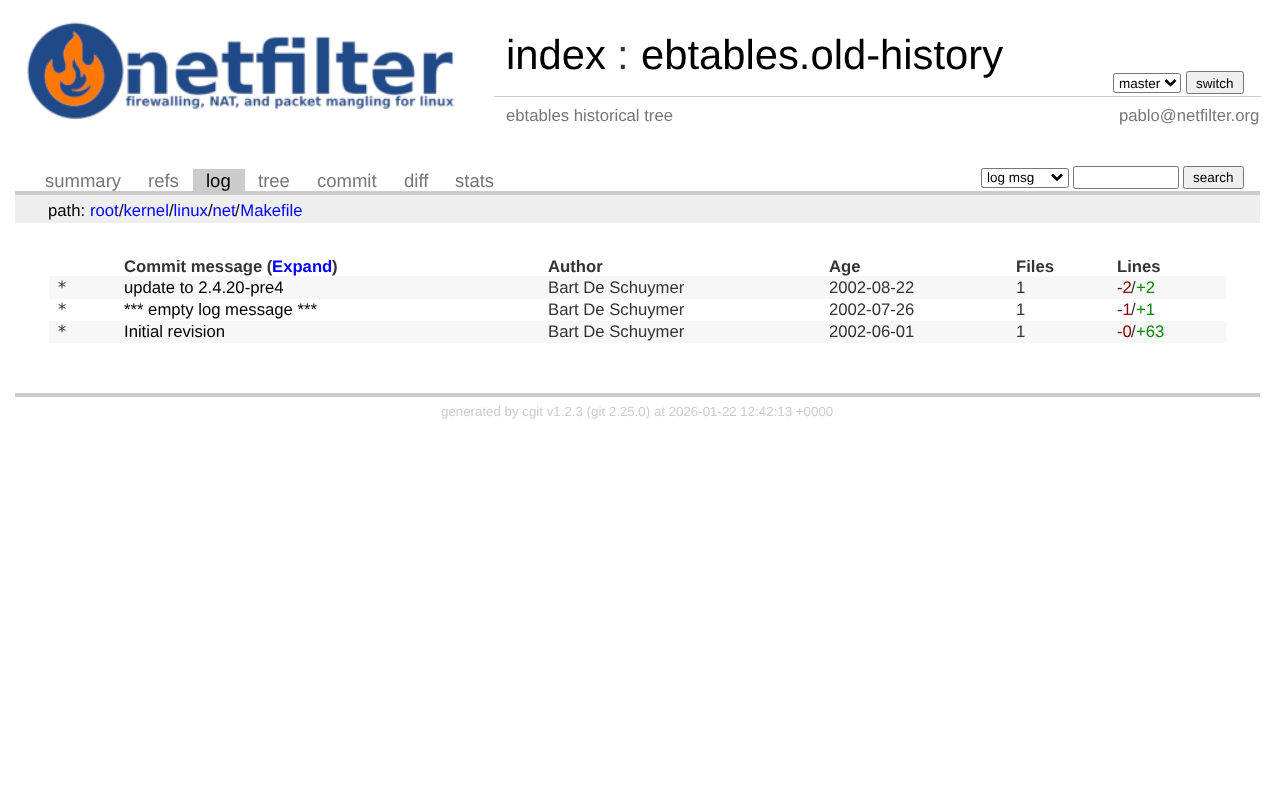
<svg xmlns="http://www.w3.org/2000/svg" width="1275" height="808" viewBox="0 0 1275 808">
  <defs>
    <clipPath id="clip1"><path d="M988 169h60v17H988z"/></clipPath>
  </defs>
  <rect width="100%" height="100%" fill="#fff"/>
  <image x="27" y="22" width="427" height="98" href="img/1.png"/>
  <rect x="1113.5" y="73.5" width="67" height="19" rx="2" fill="none" stroke="#767676"/>
  <path d="M1165.5 80L1170.5 85L1175.5 80" fill="none" stroke="#000" stroke-width="2.5"/>
  <rect x="1186.5" y="71.5" width="57" height="22" rx="2" fill="#efefef" stroke="#767676"/>
  <path d="M494 96h767v1H494z" fill="#ccc"/>
  <path d="M15 191h1245v4H15z" fill="#ccc"/>
  <path d="M193 169h52v22H193z" fill="#ccc"/>
  <rect x="981.5" y="168.5" width="87" height="19" rx="2" fill="none" stroke="#767676"/>
  <path d="M1052 174.5L1057 179.5L1062 174.5" fill="none" stroke="#000" stroke-width="2.5"/>
  <rect x="1073.5" y="166.5" width="105" height="22" rx="2" fill="none" stroke="#767676"/>
  <rect x="1183.5" y="166.5" width="60" height="22" rx="2" fill="#efefef" stroke="#767676"/>
  <path d="M15 195h1245v28H15z" fill="#eee"/>
  <path d="M15 393h1245v4H15z" fill="#ccc"/>
  <path d="M49 276h1177v23H49z" fill="#f7f7f7"/>
  <path d="M49 321h1177v22H49z" fill="#f7f7f7"/>
  <text x="506" y="69" font-family="Liberation Sans" font-size="41.75" fill="#000">index</text>
  <text x="617" y="69" font-family="Liberation Sans" font-size="41.75" fill="#333">:</text>
  <text x="641" y="69" font-family="Liberation Sans" font-size="41.75" fill="#000">ebtables.old-history</text>
  <g font-family="Liberation Sans" font-size="13.5" fill="#000">
    <text x="1119" y="88">master</text>
    <text x="1196" y="88">switch</text>
  </g>
  <g font-family="Liberation Sans" font-size="16.7" fill="#777">
    <text x="506" y="121">ebtables historical tree</text>
    <text x="1119" y="121">pablo@netfilter.org</text>
  </g>
  <g font-family="Liberation Sans" font-size="18.5" fill="#777">
    <text x="45" y="187">summary</text>
    <text x="148" y="187">refs</text>
  </g>
  <text x="206" y="187" font-family="Liberation Sans" font-size="18.5" fill="#000">log</text>
  <g font-family="Liberation Sans" font-size="18.5" fill="#777">
    <text x="258" y="187">tree</text>
    <text x="317" y="187">commit</text>
    <text x="404" y="187">diff</text>
    <text x="455" y="187">stats</text>
  </g>
  <g clip-path="url(#clip1)">
    <text x="987" y="182" font-family="Liberation Sans" font-size="13.5" fill="#000">log msg</text>
  </g>
  <text x="1193" y="182" font-family="Liberation Sans" font-size="13.5" fill="#000">search</text>
  <text x="48" y="216" font-family="Liberation Sans" font-size="16.7" fill="#000">path:</text>
  <text x="90" y="216" font-family="Liberation Sans" font-size="16.7" fill="#00f">root kernel linux net Makefile</text>
  <g font-family="Liberation Sans" font-size="16.7" fill="#000">
    <text x="119" y="216">/</text>
    <text x="169" y="216">/</text>
    <text x="208" y="216">/</text>
    <text x="235" y="216">/</text>
  </g>
  <text x="124" y="272" font-family="Liberation Sans" font-size="16.7" font-weight="bold" fill="#333">Commit message (</text>
  <text x="272" y="272" font-family="Liberation Sans" font-size="16.7" font-weight="bold" fill="#00f">Expand</text>
  <g font-family="Liberation Sans" font-size="16.7" font-weight="bold" fill="#333">
    <text x="332" y="272">)</text>
    <text x="548" y="272">Author</text>
    <text x="829" y="272">Age</text>
    <text x="1016" y="272">Files</text>
    <text x="1117" y="272">Lines</text>
  </g>
  <text x="57" y="293" font-family="DejaVu Sans Mono" font-size="16.7" fill="#333">*</text>
  <text x="124" y="293" font-family="Liberation Sans" font-size="16.7" fill="#000">update to 2.4.20-pre4</text>
  <g font-family="Liberation Sans" font-size="16.7" fill="#333">
    <text x="548" y="293">Bart De Schuymer</text>
    <text x="829" y="293">2002-08-22</text>
    <text x="1016" y="293">1</text>
  </g>
  <text x="1117" y="293" font-family="Liberation Sans" font-size="16.7" fill="#800">-2</text>
  <text x="1131" y="293" font-family="Liberation Sans" font-size="16.7" fill="#333">/</text>
  <text x="1136" y="293" font-family="Liberation Sans" font-size="16.7" fill="#080">+2</text>
  <text x="57" y="315" font-family="DejaVu Sans Mono" font-size="16.7" fill="#333">*</text>
  <text x="124" y="315" font-family="Liberation Sans" font-size="16.7" fill="#000">*** empty log message ***</text>
  <g font-family="Liberation Sans" font-size="16.7" fill="#333">
    <text x="548" y="315">Bart De Schuymer</text>
    <text x="829" y="315">2002-07-26</text>
    <text x="1016" y="315">1</text>
  </g>
  <text x="1117" y="315" font-family="Liberation Sans" font-size="16.7" fill="#800">-1</text>
  <text x="1131" y="315" font-family="Liberation Sans" font-size="16.7" fill="#333">/</text>
  <text x="1136" y="315" font-family="Liberation Sans" font-size="16.7" fill="#080">+1</text>
  <text x="57" y="337" font-family="DejaVu Sans Mono" font-size="16.7" fill="#333">*</text>
  <text x="124" y="337" font-family="Liberation Sans" font-size="16.7" fill="#000">Initial revision</text>
  <g font-family="Liberation Sans" font-size="16.7" fill="#333">
    <text x="548" y="337">Bart De Schuymer</text>
    <text x="829" y="337">2002-06-01</text>
    <text x="1016" y="337">1</text>
  </g>
  <text x="1117" y="337" font-family="Liberation Sans" font-size="16.7" fill="#800">-0</text>
  <text x="1131" y="337" font-family="Liberation Sans" font-size="16.7" fill="#333">/</text>
  <text x="1136" y="337" font-family="Liberation Sans" font-size="16.7" fill="#080">+63</text>
  <text x="441" y="416" font-family="Liberation Sans" font-size="13.3" fill="#ccc">generated by cgit v1.2.3 (git 2.25.0) at 2026-01-22 12:42:13 +0000</text>
</svg>
